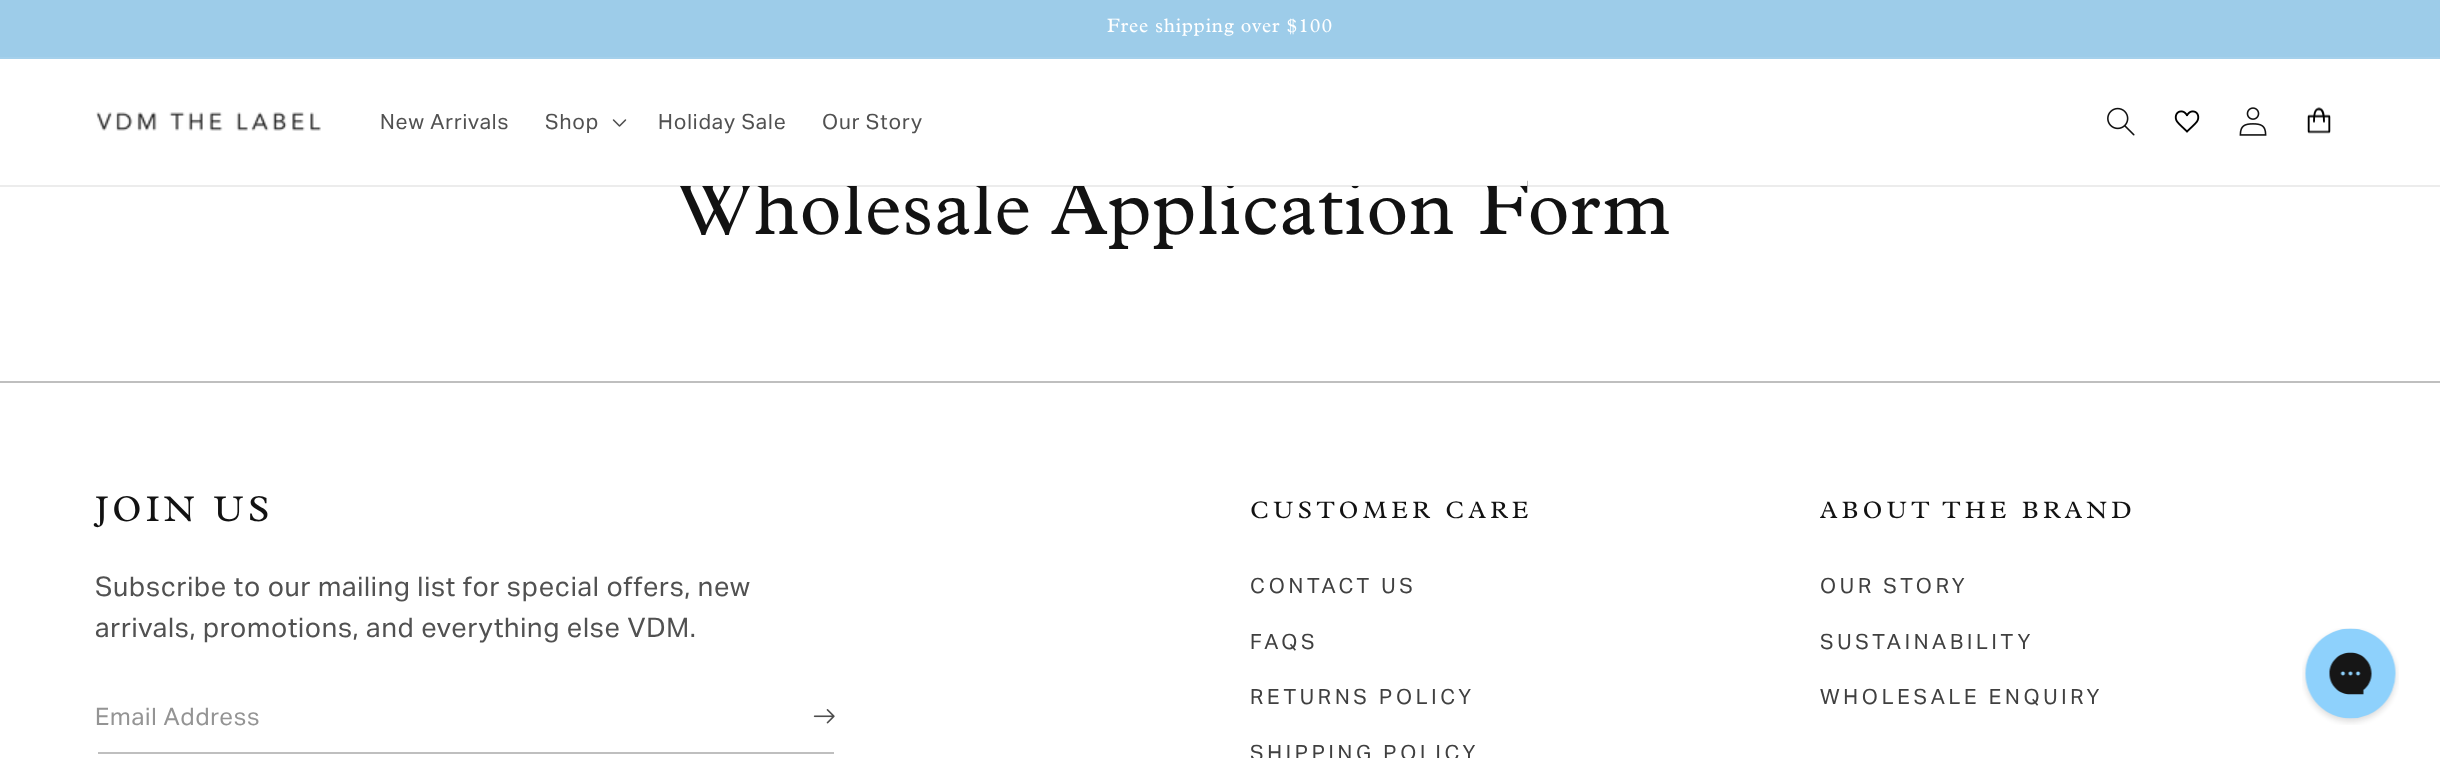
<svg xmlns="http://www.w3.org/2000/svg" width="2440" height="758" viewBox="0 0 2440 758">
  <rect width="100%" height="100%" fill="#fff"/>
  <path d="M0 0h2440v57H0z" fill="#9dcce9"/>
  <path d="M0 57h2440v2H0z" fill="#a5d0eb"/>
  <image x="96" y="112" width="225" height="19" href="img/1.png"/>
  <image x="612" y="119" width="15" height="8" href="img/2.png"/>
  <image x="2107" y="107" width="28" height="29" href="img/3.png"/>
  <image x="2174" y="110" width="26" height="23" href="img/4.png"/>
  <image x="2239" y="107" width="28" height="29" href="img/5.png"/>
  <image x="2307" y="107" width="24" height="27" href="img/6.png"/>
  <path d="M0 381h2440v2H0z" fill="#bfbfbf"/>
  <image x="813" y="709" width="22" height="15" href="img/7.png"/>
  <path d="M98 752h736v2H98z" fill="#bfbfbf"/>
  <image x="2302" y="628" width="97" height="97" href="img/8.png"/>
  <text x="1107" y="32" font-family="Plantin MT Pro" font-size="19.5" letter-spacing="0.9" fill="#fff">Free shipping over $100</text>
  <g font-family="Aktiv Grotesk" font-size="21" letter-spacing="0.9" fill="#515151">
    <text x="380" y="129">New Arrivals</text>
    <text x="545" y="129">Shop</text>
    <text x="658" y="129">Holiday Sale</text>
    <text x="822" y="129">Our Story</text>
  </g>
  <text x="676" y="234" font-family="Plantin MT Pro" font-size="78" letter-spacing="0.9" fill="#121212">Wholesale Application Form</text>
  <path d="M675 179h852v7H675z" fill="#fff"/>
  <path d="M0 185h2440v2H0z" fill="#12121214"/>
  <text x="95" y="521" font-family="Plantin MT Pro" font-size="36" letter-spacing="4.5" fill="#121212">JOIN US</text>
  <g font-family="Aktiv Grotesk" font-size="27" letter-spacing="0.75" fill="#515151">
    <text x="95" y="596">Subscribe to our mailing list for special offers, new</text>
    <text x="95" y="637">arrivals, promotions, and everything else VDM.</text>
  </g>
  <text x="95" y="725" font-family="Aktiv Grotesk" font-size="24" letter-spacing="0.75" fill="#949494">Email Address</text>
  <text x="1250" y="518" font-family="Plantin MT Pro" font-size="24" letter-spacing="4.5" fill="#121212">CUSTOMER CARE</text>
  <g font-family="Aktiv Grotesk" font-size="21" letter-spacing="3.75" fill="#404040">
    <text x="1250" y="593">CONTACT US</text>
    <text x="1250" y="649">FAQS</text>
    <text x="1250" y="704">RETURNS POLICY</text>
    <text x="1250" y="760">SHIPPING POLICY</text>
  </g>
  <text x="1820" y="518" font-family="Plantin MT Pro" font-size="24" letter-spacing="4.5" fill="#121212">ABOUT THE BRAND</text>
  <g font-family="Aktiv Grotesk" font-size="21" letter-spacing="3.75" fill="#404040">
    <text x="1820" y="593">OUR STORY</text>
    <text x="1820" y="649">SUSTAINABILITY</text>
    <text x="1820" y="704">WHOLESALE ENQUIRY</text>
  </g>
</svg>
